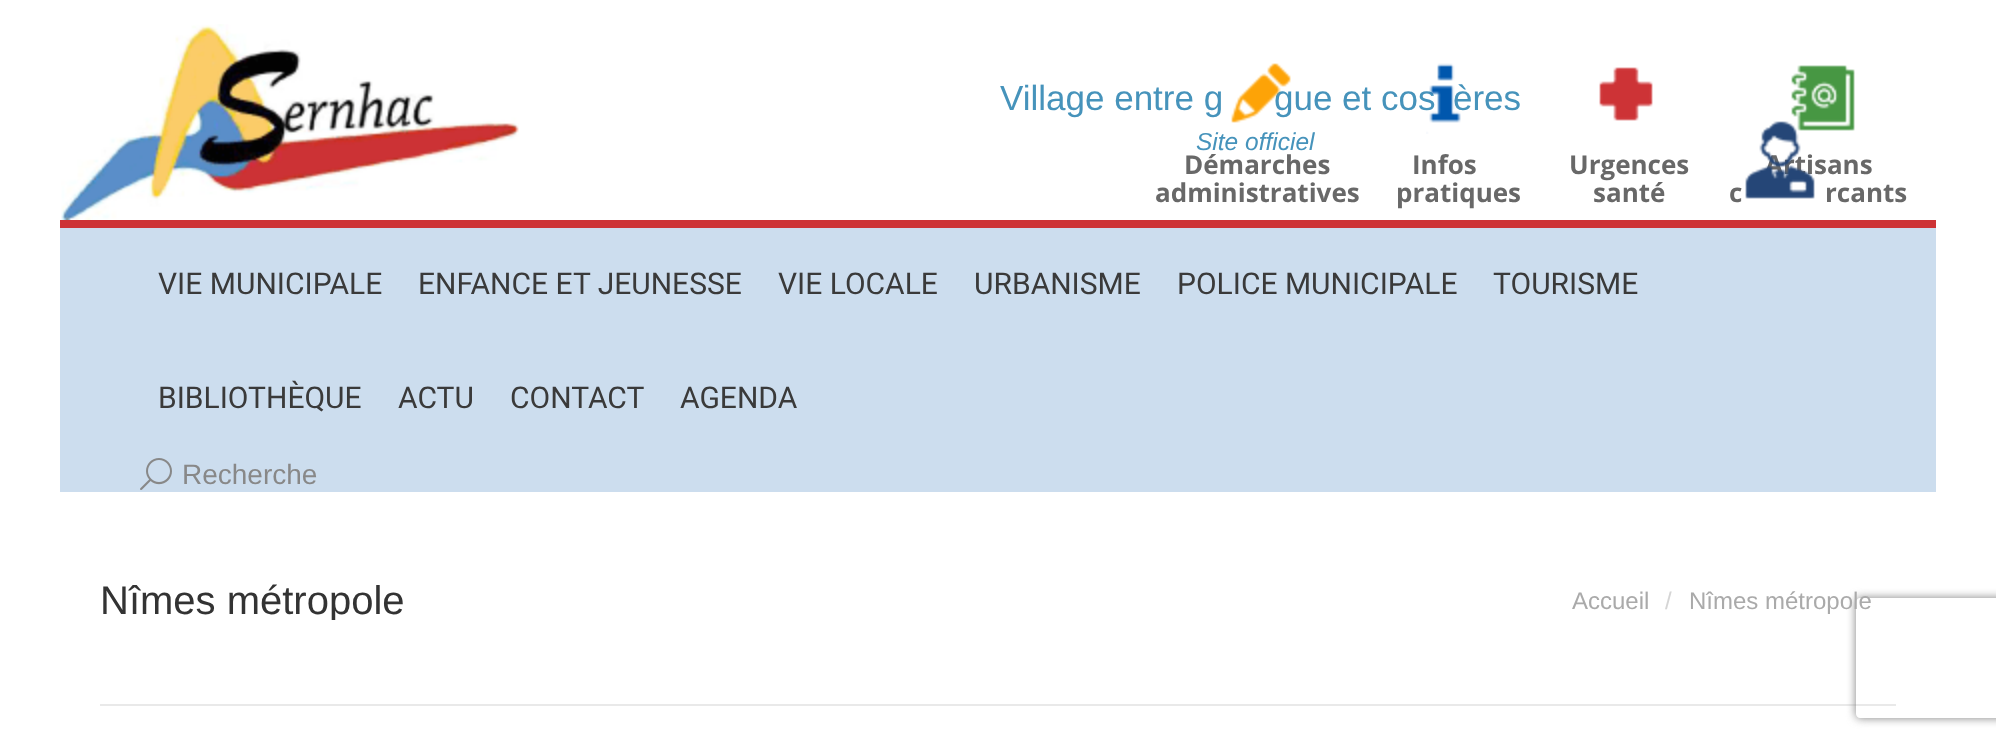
<svg xmlns="http://www.w3.org/2000/svg" width="1996" height="746" viewBox="0 0 1996 746">
  <defs>
    <clipPath id="clip1"><path d="M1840 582H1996V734H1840ZM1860 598H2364C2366 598 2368 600 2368 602V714C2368 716 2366 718 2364 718H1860C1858 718 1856 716 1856 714V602C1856 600 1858 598 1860 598Z" clip-rule="evenodd"/></clipPath>
    <clipPath id="clip2"><path d="M100 580h304v40H100z"/></clipPath>
  </defs>
  <rect width="100%" height="100%" fill="#fff"/>
  <image x="61" y="24" width="458" height="196" href="img/1.png"/>
  <image x="1599" y="67" width="54" height="54" href="img/5.png"/>
  <image x="1791" y="65" width="64" height="66" href="img/6.png"/>
  <path d="M60 228h1876v264H60z" fill="#cde"/>
  <path d="M60 220h1876v8H60z" fill="#cd3336"/>
  <image x="140" y="458" width="32" height="32" href="img/7.png"/>
  <path d="M100 704h1796v2H100z" fill="#e9e9e9"/>
  <g clip-path="url(#clip1)">
    <rect x="1856" y="598" width="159" height="120" rx="4" fill="#808080" filter="blur(5px)"/>
  </g>
  <g font-family="Liberation Sans" font-size="35" fill="#4693bb">
    <text x="1000" y="110">Village entre g</text>
    <text x="1274" y="110">gue et cos</text>
    <text x="1453" y="110">ères</text>
  </g>
  <text x="1196" y="150" font-family="Liberation Sans" font-size="24.5" font-style="italic" fill="#4693bb">Site officiel</text>
  <image x="1231" y="63" width="60" height="60" href="img/2.png"/>
  <g font-family="Open Sans" font-size="26" font-weight="bold" fill="#686868">
    <text x="1184" y="174">Démarches</text>
    <text x="1155" y="202">administratives</text>
  </g>
  <image x="1426" y="63" width="35" height="71" href="img/3.png"/>
  <g font-family="Open Sans" font-size="26" font-weight="bold" fill="#686868">
    <text x="1412" y="174">Infos</text>
    <text x="1396" y="202">pratiques</text>
    <text x="1569" y="174">Urgences</text>
    <text x="1593" y="202">santé</text>
    <text x="1765" y="174">Artisans</text>
  </g>
  <image x="1745" y="121" width="70" height="78" href="img/4.png"/>
  <g font-family="Open Sans" font-size="26" font-weight="bold" fill="#686868">
    <text x="1729" y="202">c</text>
    <text x="1825" y="202">rcants</text>
  </g>
  <g font-family="Roboto" font-size="30" fill="#3a3a3a">
    <text x="158" y="294">VIE MUNICIPALE</text>
    <text x="418" y="294">ENFANCE ET JEUNESSE</text>
    <text x="778" y="294">VIE LOCALE</text>
    <text x="974" y="294">URBANISME</text>
    <text x="1177" y="294">POLICE MUNICIPALE</text>
    <text x="1493" y="294">TOURISME</text>
    <text x="158" y="408">BIBLIOTHÈQUE</text>
    <text x="398" y="408">ACTU</text>
    <text x="510" y="408">CONTACT</text>
    <text x="680" y="408">AGENDA</text>
  </g>
  <text x="182" y="484" font-family="Liberation Sans" font-size="28" fill="#888">Recherche</text>
  <g clip-path="url(#clip2)">
    <text x="100" y="614" font-family="Liberation Sans" font-size="40" fill="#333">Nîmes métropole</text>
  </g>
  <text x="1572" y="609" font-family="Liberation Sans" font-size="24" fill="#aaa">Accueil</text>
  <text x="1665" y="609" font-family="Liberation Sans" font-size="24" fill="#d5d5d5">/</text>
  <text x="1689" y="609" font-family="Liberation Sans" font-size="24" fill="#aaa">Nîmes métropole</text>
</svg>
